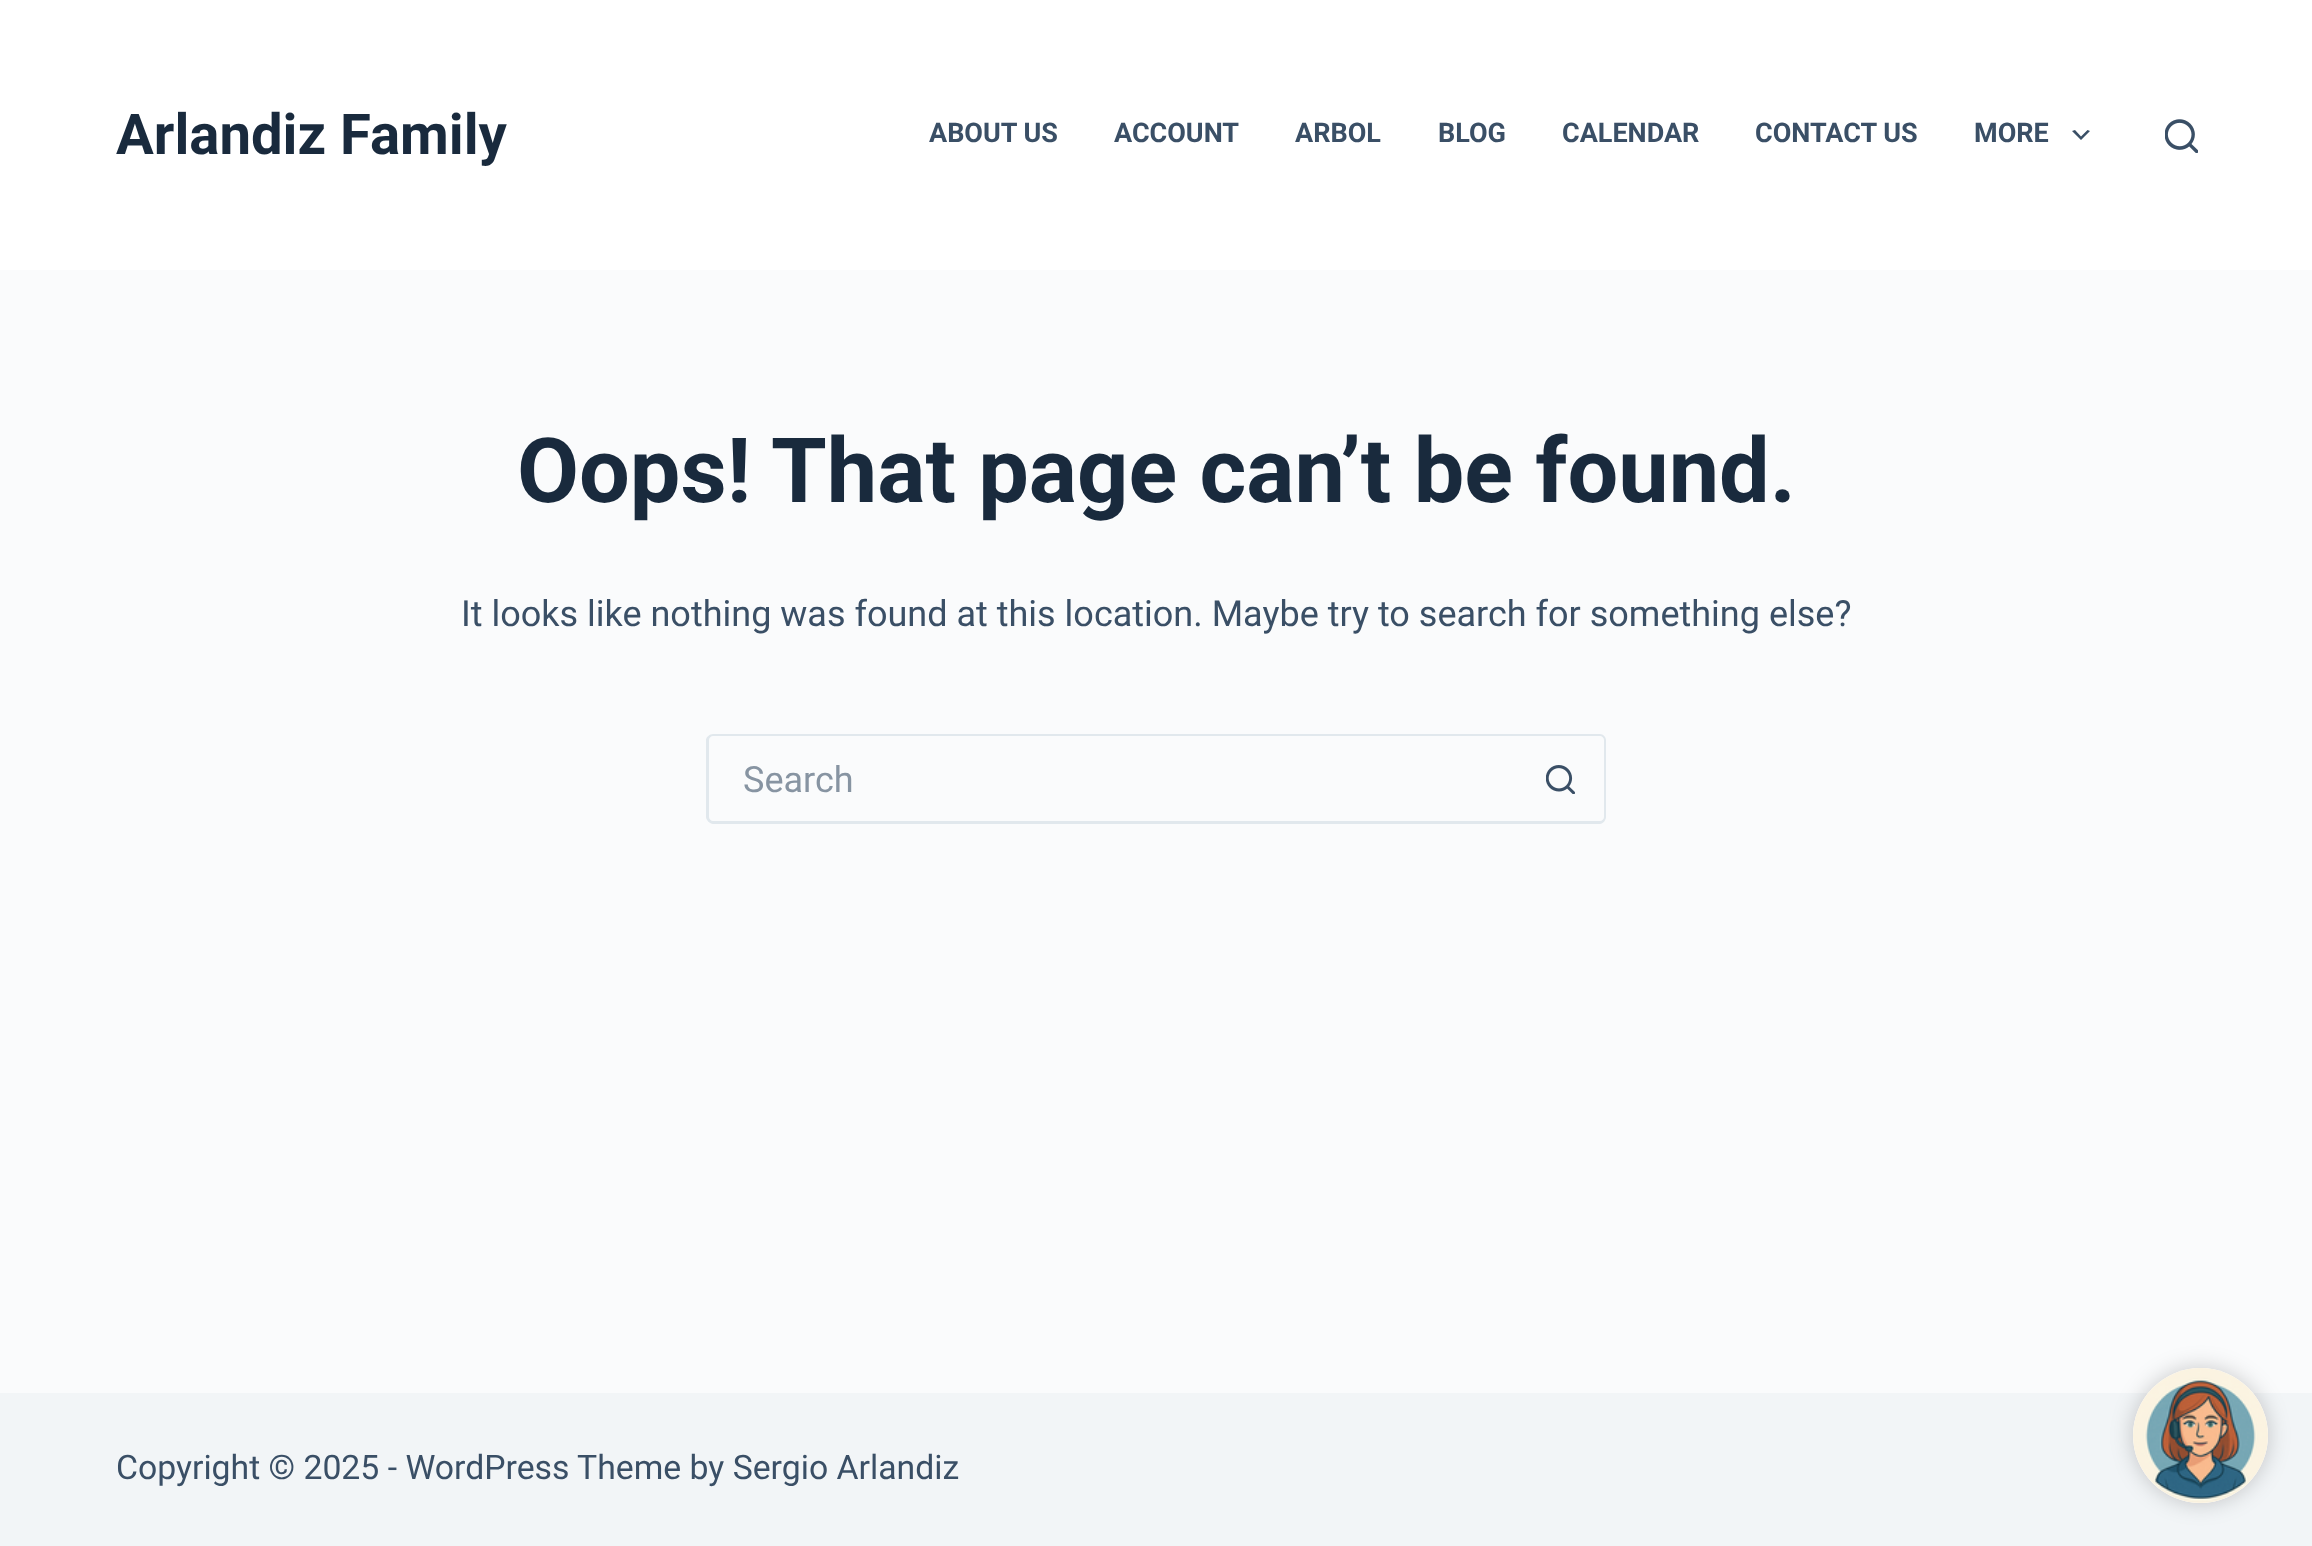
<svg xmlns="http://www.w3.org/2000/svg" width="2312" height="1546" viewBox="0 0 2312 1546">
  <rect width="100%" height="100%" fill="#fafbfc"/>
  <path d="M0 0h2312v270H0z" fill="#fff"/>
  <path d="M2075 130L2081 136.5L2087.5 130L2090 131L2081 140L2072 131Z" fill="#3a4f66"/>
  <image x="2165" y="119" width="33" height="34" href="img/1.png"/>
  <path d="M713 734H1516V824H713C710 824 706 820 706 817V740C706 737 710 734 713 734ZM713 736H1516V821H713C711 821 709 819 709 817V740C709 738 711 736 713 736Z" fill="#e1e8ed" fill-rule="evenodd"/>
  <path d="M1516 734H1600C1603 734 1606 737 1606 740V817C1606 820 1603 824 1600 824H1516ZM1516 736H1600C1602 736 1604 738 1604 740V817C1604 819 1602 821 1600 821H1516Z" fill="#e1e8ed" fill-rule="evenodd"/>
  <image x="1546" y="765" width="29" height="29" href="img/2.png"/>
  <path d="M0 1393h2312v153H0z" fill="#f2f5f7"/>
  <rect x="2133" y="1368" width="135" height="135" rx="67.5" fill="#00000033" filter="blur(11px)"/>
  <circle cx="2200.5" cy="1435.5" r="67.5" fill="#fff"/>
  <image x="2133" y="1368" width="135" height="135" href="img/3.png"/>
  <text x="116" y="154" font-family="Roboto" font-size="56.25" font-weight="bold" fill="#192a3d">Arlandiz Family</text>
  <g font-family="Roboto" font-size="27" font-weight="bold" fill="#3a4f66">
    <text x="929" y="142">ABOUT US</text>
    <text x="1114" y="142">ACCOUNT</text>
    <text x="1295" y="142">ARBOL</text>
    <text x="1438" y="142">BLOG</text>
    <text x="1562" y="142">CALENDAR</text>
    <text x="1755" y="142">CONTACT US</text>
    <text x="1974" y="142">MORE</text>
  </g>
  <text x="517" y="502" font-family="Roboto" font-size="90" font-weight="bold" fill="#192a3d">Oops! That page can’t be found.</text>
  <text x="461" y="626" font-family="Roboto" font-size="36" fill="#3a4f66">It looks like nothing was found at this location. Maybe try to search for something else?</text>
  <text x="743" y="792" font-family="Roboto" font-size="36" fill="#8794a2">Search</text>
  <text x="116" y="1479" font-family="Roboto" font-size="33.75" fill="#3a4f66">Copyright © 2025 - WordPress Theme by Sergio Arlandiz</text>
</svg>
